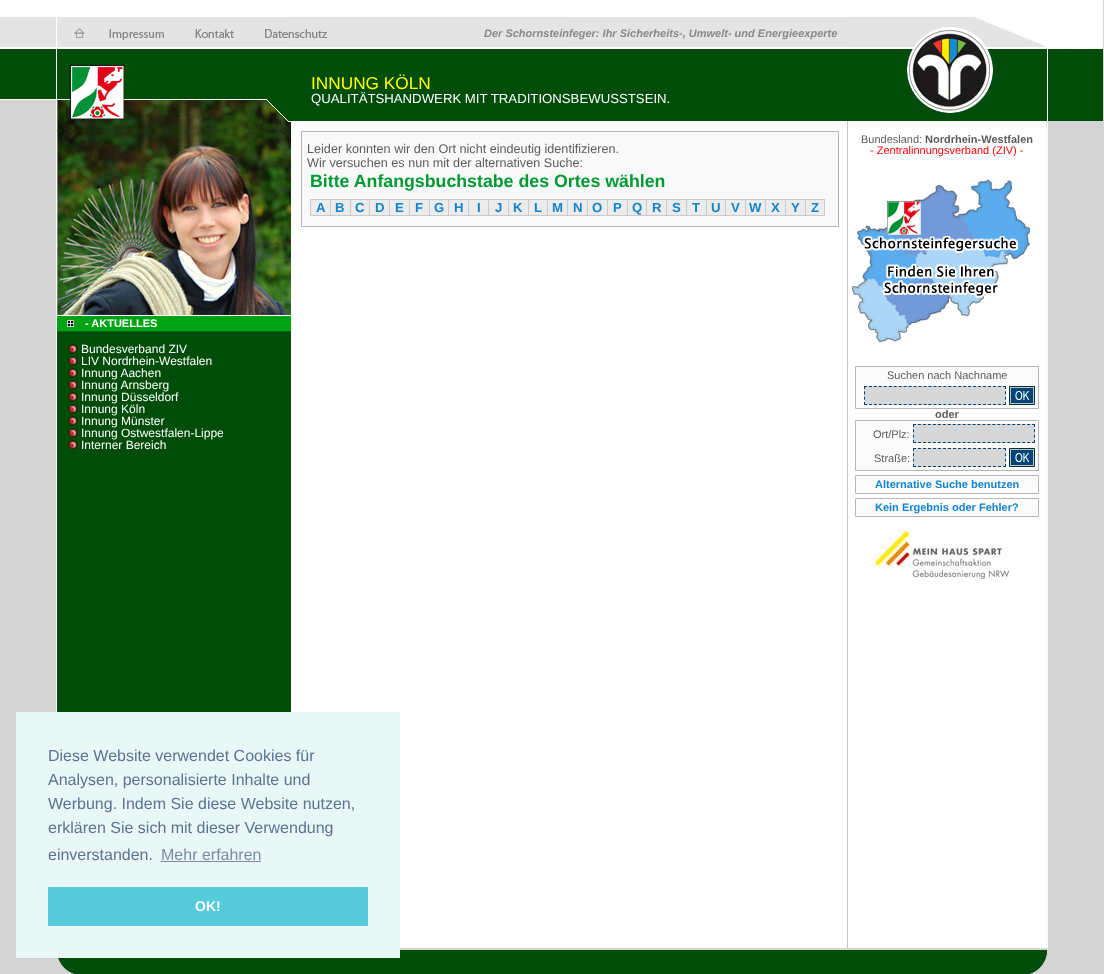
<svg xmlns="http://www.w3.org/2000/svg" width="1104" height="974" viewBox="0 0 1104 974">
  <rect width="100%" height="100%" fill="#d4d4d4"/>
  <image x="0" y="0" width="56" height="100" href="img/1.png"/>
  <image x="57" y="121" width="990" height="827" href="img/2.png"/>
  <path d="M1047 0h1v948H1047z" fill="#fff"/>
  <path d="M56 0h1v712H56z" fill="#fff"/>
  <image x="57" y="100" width="234" height="216" href="img/13.png"/>
  <image x="57" y="0" width="234" height="248" href="img/14.png"/>
  <image x="74" y="28" width="11" height="10" href="img/3.png"/>
  <image x="109" y="29" width="55" height="11" href="img/4.png"/>
  <image x="195" y="27" width="39" height="11" href="img/5.png"/>
  <image x="291" y="0" width="576" height="121" href="img/8.png"/>
  <image x="265" y="29" width="62" height="9" href="img/6.png"/>
  <image x="69" y="64" width="56" height="56" href="img/7.png"/>
  <path d="M301.5 131.5h537v95H301.5z" fill="#f9f9f9" stroke="#b5b5b5"/>
  <path d="M310 199h515v17H310z" fill="#cbcbcb"/>
  <path d="M311 200h19v15H311z" fill="#ececec"/>
  <path d="M331 200h19v15H331z" fill="#ececec"/>
  <path d="M351 200h18v15H351z" fill="#ececec"/>
  <path d="M370 200h19v15H370z" fill="#ececec"/>
  <path d="M390 200h19v15H390z" fill="#ececec"/>
  <path d="M410 200h19v15H410z" fill="#ececec"/>
  <path d="M430 200h18v15H430z" fill="#ececec"/>
  <path d="M449 200h19v15H449z" fill="#ececec"/>
  <path d="M469 200h19v15H469z" fill="#ececec"/>
  <path d="M489 200h19v15H489z" fill="#ececec"/>
  <path d="M509 200h19v15H509z" fill="#ececec"/>
  <path d="M529 200h18v15H529z" fill="#ececec"/>
  <path d="M548 200h19v15H548z" fill="#ececec"/>
  <path d="M568 200h19v15H568z" fill="#ececec"/>
  <path d="M588 200h19v15H588z" fill="#ececec"/>
  <path d="M608 200h19v15H608z" fill="#ececec"/>
  <path d="M628 200h18v15H628z" fill="#ececec"/>
  <path d="M647 200h19v15H647z" fill="#ececec"/>
  <path d="M667 200h19v15H667z" fill="#ececec"/>
  <path d="M687 200h19v15H687z" fill="#ececec"/>
  <path d="M707 200h18v15H707z" fill="#ececec"/>
  <path d="M726 200h19v15H726z" fill="#ececec"/>
  <path d="M746 200h19v15H746z" fill="#ececec"/>
  <path d="M766 200h19v15H766z" fill="#ececec"/>
  <path d="M786 200h19v15H786z" fill="#ececec"/>
  <path d="M806 200h18v15H806z" fill="#ececec"/>
  <image x="867" y="0" width="180" height="121" href="img/9.png"/>
  <image x="852" y="179" width="178" height="164" href="img/10.png"/>
  <path d="M855.5 366.5h183v42H855.5z" fill="#fbfbfb" stroke="#b6b6b6"/>
  <path d="M864 386h142v19H864z" fill="#d7d7d7"/>
  <path d="M864 386.5H1006" fill="none" stroke="#004478" stroke-dasharray="3 1.96"/>
  <path d="M1005.5 386V405" fill="none" stroke="#004478" stroke-dasharray="3 2.33"/>
  <path d="M864 404.5H1006" fill="none" stroke="#004478" stroke-dasharray="3 1.96"/>
  <path d="M864.5 386V405" fill="none" stroke="#004478" stroke-dasharray="3 2.33"/>
  <path d="M1009.5 386.5h25v18H1009.5z" fill="none" stroke="#033"/>
  <image x="1010" y="387" width="24" height="17" href="img/11.png"/>
  <path d="M855.5 420.5h183v50H855.5z" fill="#fbfbfb" stroke="#b6b6b6"/>
  <path d="M913 424h122v19H913z" fill="#d7d7d7"/>
  <path d="M913 424.5H1035" fill="none" stroke="#004478" stroke-dasharray="3 1.96"/>
  <path d="M1034.5 424V443" fill="none" stroke="#004478" stroke-dasharray="3 2.33"/>
  <path d="M913 442.5H1035" fill="none" stroke="#004478" stroke-dasharray="3 1.96"/>
  <path d="M913.5 424V443" fill="none" stroke="#004478" stroke-dasharray="3 2.33"/>
  <path d="M913 448h93v19H913z" fill="#d7d7d7"/>
  <path d="M913 448.5H1006" fill="none" stroke="#004478" stroke-dasharray="3 2"/>
  <path d="M1005.5 448V467" fill="none" stroke="#004478" stroke-dasharray="3 2.33"/>
  <path d="M913 466.5H1006" fill="none" stroke="#004478" stroke-dasharray="3 2"/>
  <path d="M913.5 448V467" fill="none" stroke="#004478" stroke-dasharray="3 2.33"/>
  <path d="M1009.5 448.5h25v18H1009.5z" fill="none" stroke="#033"/>
  <image x="1010" y="449" width="24" height="17" href="img/11.png"/>
  <path d="M855.5 475.5h183v18H855.5z" fill="#fbfbfb" stroke="#b6b6b6"/>
  <path d="M855.5 498.5h183v18H855.5z" fill="#fbfbfb" stroke="#b6b6b6"/>
  <image x="873" y="528" width="136" height="53" href="img/12.png"/>
  <path d="M57 316h234v15H57z" fill="#00a313"/>
  <image x="67" y="320" width="7" height="7" href="img/15.png"/>
  <path d="M57 331h234v1H57z" fill="#00660c"/>
  <image x="68" y="344" width="10" height="10" href="img/16.png"/>
  <image x="68" y="356" width="10" height="10" href="img/16.png"/>
  <image x="68" y="368" width="10" height="10" href="img/16.png"/>
  <image x="68" y="380" width="10" height="10" href="img/16.png"/>
  <image x="68" y="392" width="10" height="10" href="img/16.png"/>
  <image x="68" y="404" width="10" height="10" href="img/16.png"/>
  <image x="68" y="416" width="10" height="10" href="img/16.png"/>
  <image x="68" y="428" width="10" height="10" href="img/16.png"/>
  <image x="68" y="440" width="10" height="10" href="img/16.png"/>
  <image x="1048" y="0" width="55" height="121" href="img/17.png"/>
  <image x="58" y="950" width="989" height="24" href="img/18.png"/>
  <path d="M16 712h384v246H16z" fill="#eaf7f7"/>
  <path d="M161 861h100v1H161z" fill="#788da5"/>
  <path d="M48 887h320v39H48z" fill="#56cbdb"/>
  <text x="484" y="37" font-family="Liberation Sans" font-size="11" font-weight="bold" font-style="italic" fill="#898989">Der Schornsteinfeger: Ihr Sicherheits-, Umwelt- und Energieexperte</text>
  <text x="311" y="89" font-family="Liberation Sans" font-size="17.25" fill="#ff0">INNUNG KÖLN</text>
  <text x="311" y="103" font-family="Liberation Sans" font-size="13.2" fill="#fff">QUALITÄTSHANDWERK MIT TRADITIONSBEWUSSTSEIN.</text>
  <g font-family="Liberation Sans" font-size="12.65" fill="#5c5c5c">
    <text x="307" y="153">Leider konnten wir den Ort nicht eindeutig identifizieren.</text>
    <text x="307" y="167">Wir versuchen es nun mit der alternativen Suche:</text>
  </g>
  <text x="310" y="187" font-family="Liberation Sans" font-size="17.75" font-weight="bold" fill="#093">Bitte Anfangsbuchstabe des Ortes wählen</text>
  <g font-family="Liberation Sans" font-size="13.2" font-weight="bold" fill="#1284cd">
    <text x="316" y="212">A</text>
    <text x="335" y="212">B</text>
    <text x="355" y="212">C</text>
    <text x="375" y="212">D</text>
    <text x="395" y="212">E</text>
    <text x="415" y="212">F</text>
    <text x="434" y="212">G</text>
    <text x="454" y="212">H</text>
    <text x="477" y="212">I</text>
    <text x="495" y="212">J</text>
    <text x="513" y="212">K</text>
    <text x="534" y="212">L</text>
    <text x="552" y="212">M</text>
    <text x="573" y="212">N</text>
    <text x="592" y="212">O</text>
    <text x="613" y="212">P</text>
    <text x="632" y="212">Q</text>
    <text x="652" y="212">R</text>
    <text x="672" y="212">S</text>
    <text x="692" y="212">T</text>
    <text x="711" y="212">U</text>
    <text x="731" y="212">V</text>
    <text x="749" y="212">W</text>
    <text x="771" y="212">X</text>
    <text x="791" y="212">Y</text>
    <text x="811" y="212">Z</text>
  </g>
  <text x="861" y="143" font-family="Liberation Sans" font-size="11" fill="#5c5c5c">Bundesland:</text>
  <text x="925" y="143" font-family="Liberation Sans" font-size="11" font-weight="bold" fill="#5c5c5c">Nordrhein-Westfalen</text>
  <text x="870" y="154" font-family="Liberation Sans" font-size="11" fill="#f00">- Zentralinnungsverband (ZIV) -</text>
  <text x="887" y="379" font-family="Liberation Sans" font-size="11" fill="#5c5c5c">Suchen nach Nachname</text>
  <text x="935" y="418" font-family="Liberation Sans" font-size="11" font-weight="bold" fill="#5c5c5c">oder</text>
  <g font-family="Liberation Sans" font-size="11" fill="#5c5c5c">
    <text x="873" y="438">Ort/Plz:</text>
    <text x="874" y="462">Straße:</text>
  </g>
  <g font-family="Liberation Sans" font-size="11" font-weight="bold" fill="#1284cd">
    <text x="875" y="488">Alternative Suche benutzen</text>
    <text x="875" y="511">Kein Ergebnis oder Fehler?</text>
  </g>
  <text x="85" y="327" font-family="Liberation Sans" font-size="11" font-weight="bold" fill="#fff">- AKTUELLES</text>
  <g font-family="Liberation Sans" font-size="12" fill="#fff">
    <text x="81" y="353">Bundesverband ZIV</text>
    <text x="81" y="365">LIV Nordrhein-Westfalen</text>
    <text x="81" y="377">Innung Aachen</text>
    <text x="81" y="389">Innung Arnsberg</text>
    <text x="81" y="401">Innung Düsseldorf</text>
    <text x="81" y="413">Innung Köln</text>
    <text x="81" y="425">Innung Münster</text>
    <text x="81" y="437">Innung Ostwestfalen-Lippe</text>
    <text x="81" y="449">Interner Bereich</text>
  </g>
  <g font-family="Liberation Sans" font-size="16" fill="#5c7291">
    <text x="48" y="761">Diese Website verwendet Cookies für</text>
    <text x="48" y="785">Analysen, personalisierte Inhalte und</text>
    <text x="48" y="809">Werbung. Indem Sie diese Website nutzen,</text>
    <text x="48" y="833">erklären Sie sich mit dieser Verwendung</text>
    <text x="48" y="860">einverstanden.</text>
  </g>
  <text x="161" y="860" font-family="Liberation Sans" font-size="16" fill="#788da5">Mehr erfahren</text>
  <text x="195" y="911" font-family="Liberation Sans" font-size="14" font-weight="bold" fill="#fff">OK!</text>
</svg>
